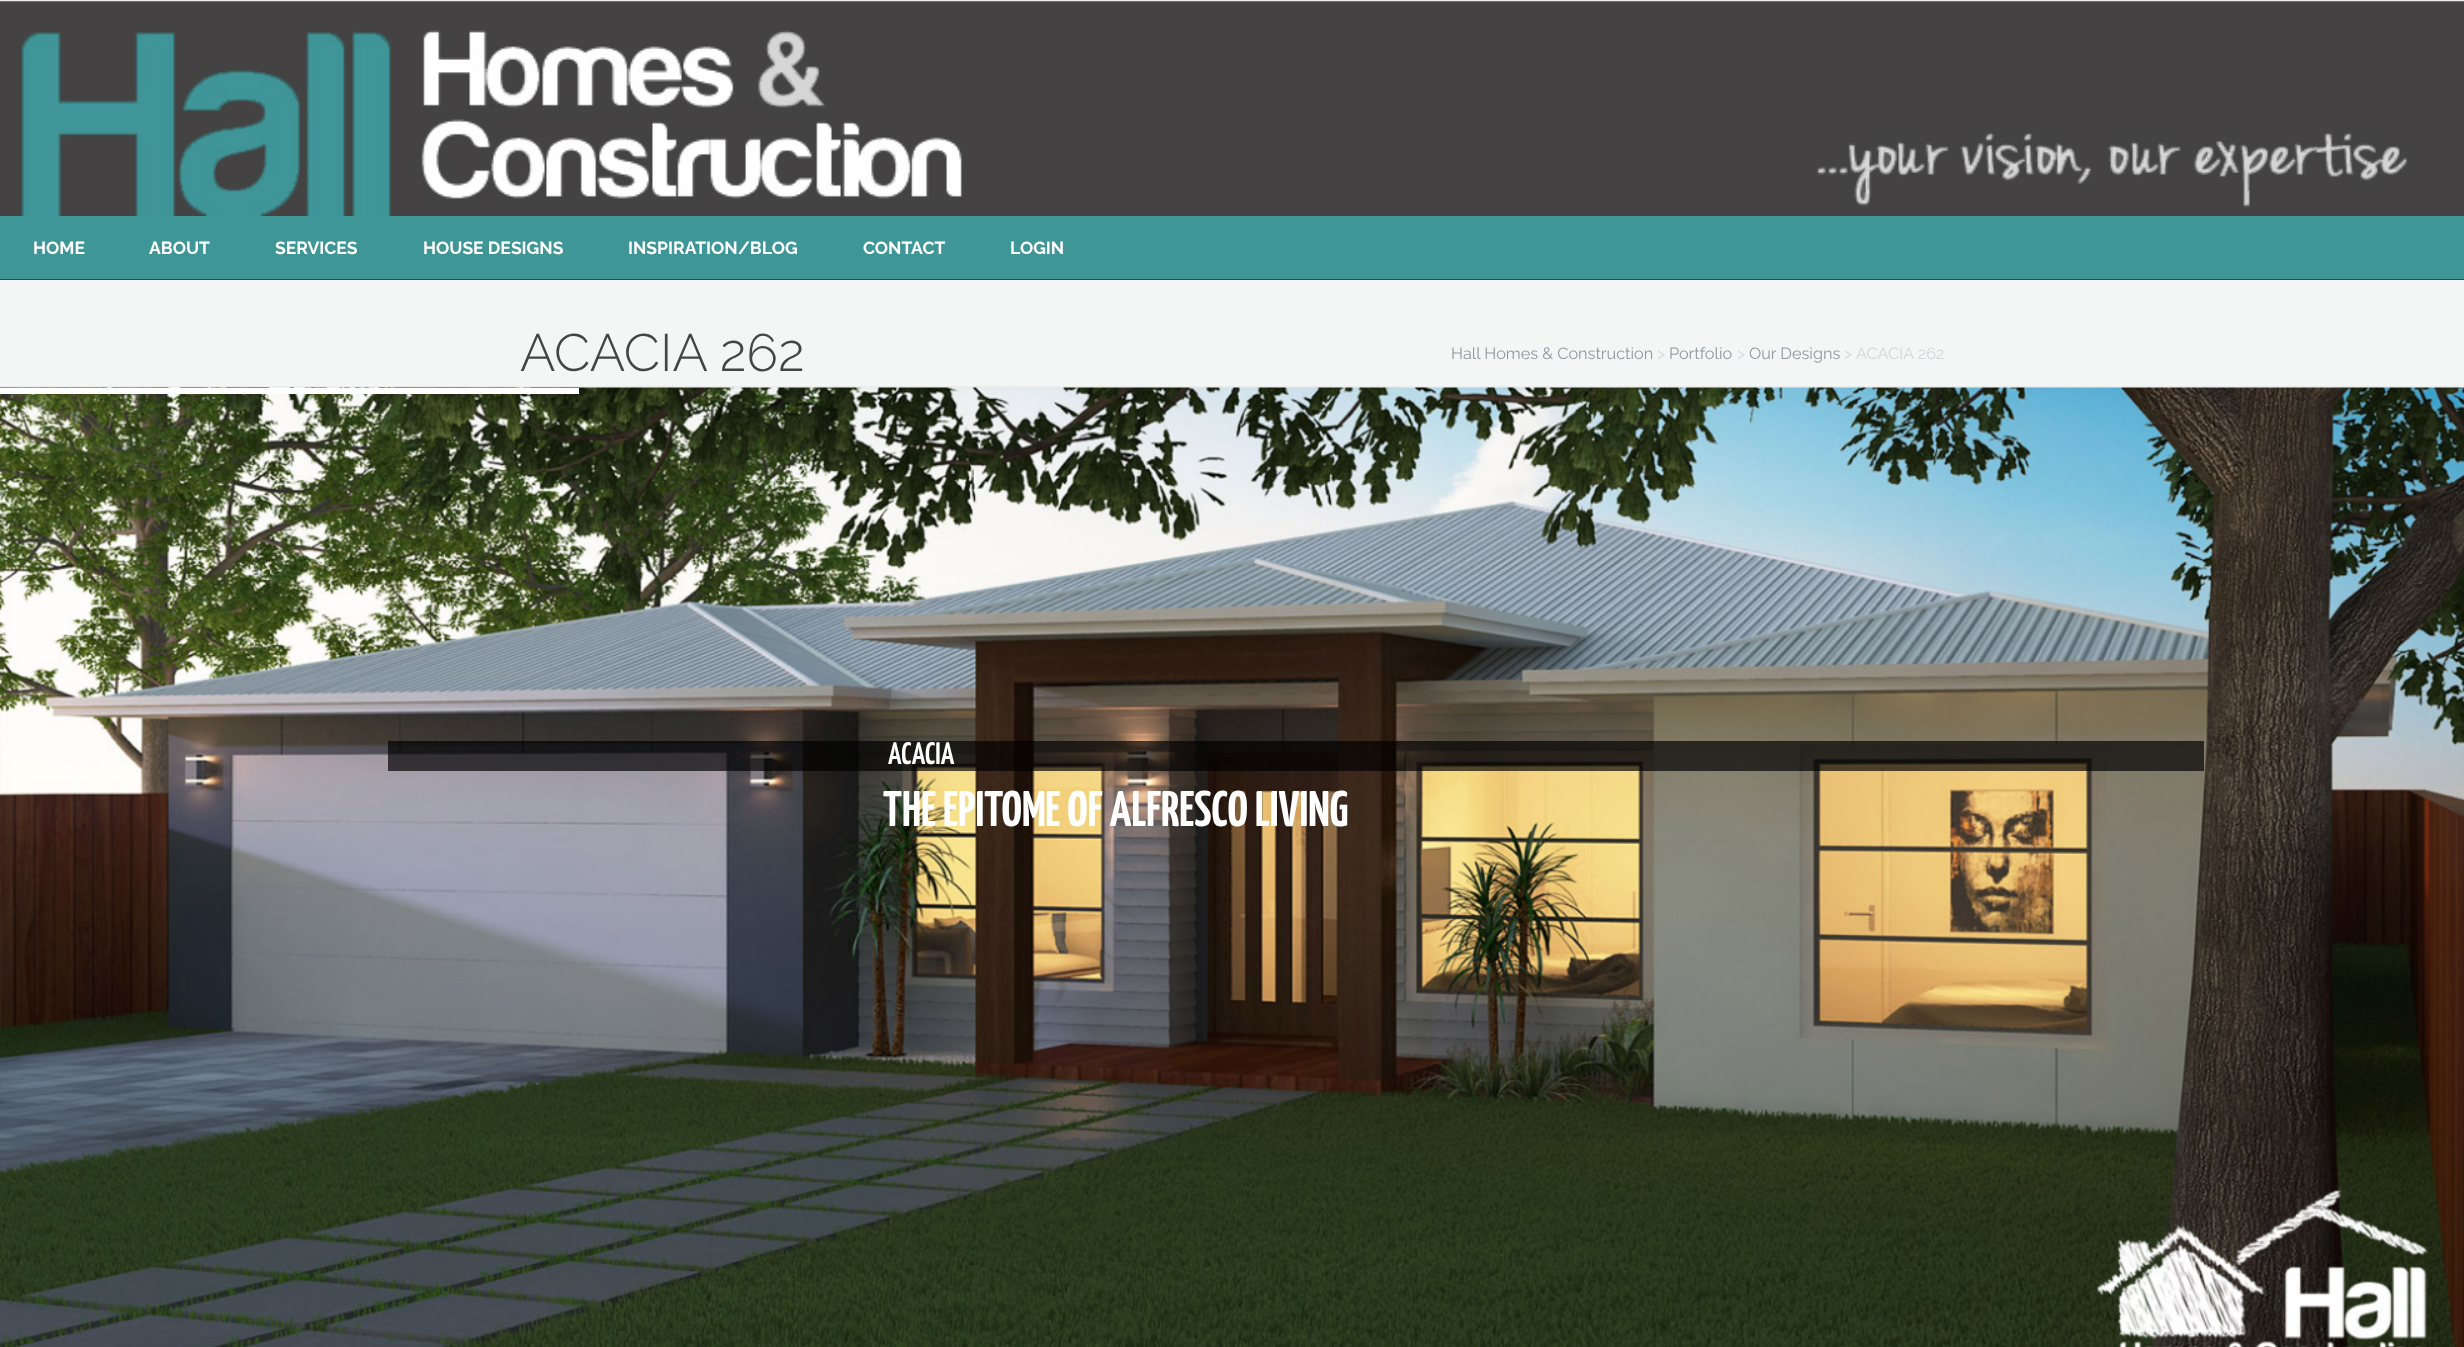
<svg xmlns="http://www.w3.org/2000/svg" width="2464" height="1347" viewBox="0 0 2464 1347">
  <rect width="100%" height="100%" fill="#fff"/>
  <path d="M0 279h2464v1H0z" fill="#414141"/>
  <path d="M0 0h2464v1H0z" fill="#ebebeb"/>
  <image x="0" y="1" width="2464" height="215" href="img/1.png"/>
  <path d="M0 216h2464v63H0z" fill="#3f9697"/>
  <path d="M0 280h2464v108H0z" fill="#f4f5f5"/>
  <path d="M0 386h2464v1H0z" fill="#eaebeb"/>
  <image x="0" y="387" width="2464" height="960" href="img/2.png"/>
  <path d="M0 388h579v6H0z" fill="#fff"/>
  <path d="M388 741h1816v30H388z" fill="#000000ad"/>
  <g font-family="Raleway" font-size="17.5" font-weight="bold" fill="#fff">
    <text x="33" y="254">HOME</text>
    <text x="149" y="254">ABOUT</text>
    <text x="275" y="254">SERVICES</text>
    <text x="423" y="254">HOUSE DESIGNS</text>
    <text x="628" y="254">INSPIRATION/BLOG</text>
    <text x="863" y="254">CONTACT</text>
    <text x="1010" y="254">LOGIN</text>
  </g>
  <text x="520" y="371" font-family="Raleway" font-size="52.5" font-weight="300" fill="#444">ACACIA 262</text>
  <text x="1451" y="359" font-family="Raleway" font-size="16.25" fill="#8f999f">Hall Homes &amp; Construction</text>
  <text x="1657" y="359" font-family="Raleway" font-size="16.25" fill="#d2d6d9">&gt;</text>
  <text x="1669" y="359" font-family="Raleway" font-size="16.25" fill="#8f999f">Portfolio</text>
  <text x="1737" y="359" font-family="Raleway" font-size="16.25" fill="#d2d6d9">&gt;</text>
  <text x="1749" y="359" font-family="Raleway" font-size="16.25" fill="#8f999f">Our Designs</text>
  <text x="1844" y="359" font-family="Raleway" font-size="16.25" fill="#d2d6d9">&gt; ACACIA 262</text>
  <text x="888" y="764" font-family="Yanone Kaffeesatz" font-size="31" font-weight="600" fill="#fff">ACACIA</text>
  <text x="883" y="826" font-family="Yanone Kaffeesatz" font-size="50" font-weight="bold" fill="#fff">THE EPITOME OF ALFRESCO LIVING</text>
</svg>
